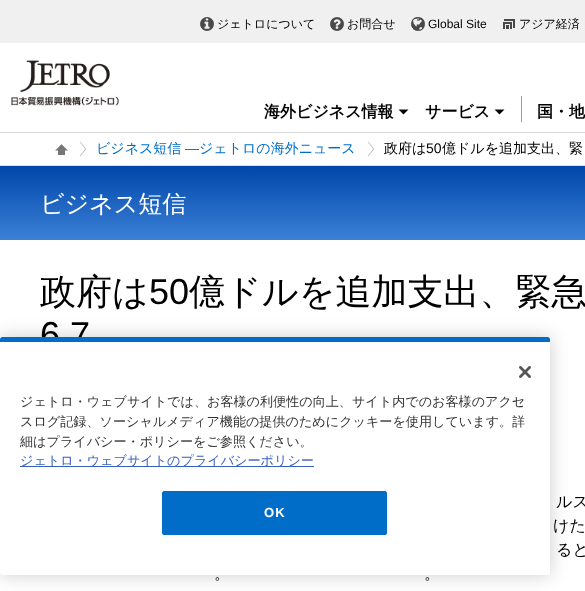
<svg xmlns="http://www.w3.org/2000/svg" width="585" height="591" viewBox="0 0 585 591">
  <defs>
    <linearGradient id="g1" gradientUnits="userSpaceOnUse" x1="520" y1="166" x2="520" y2="240"><stop offset="0" stop-color="#0046aa"/><stop offset="1" stop-color="#3b81d6"/></linearGradient>
  </defs>
  <rect width="100%" height="100%" fill="#fff"/>
  <path d="M0 0h585v43H0z" fill="#f0f0f0"/>
  <image x="200" y="17" width="14" height="14" href="img/1.png"/>
  <image x="330" y="17" width="14" height="14" href="img/2.png"/>
  <image x="411" y="17" width="14" height="14" href="img/3.png"/>
  <image x="503" y="19" width="12" height="10" href="img/4.png"/>
  <image x="11" y="60" width="108" height="46" href="img/5.png"/>
  <image x="398" y="109" width="11" height="6" href="img/6.png"/>
  <path d="M521 96h1v26H521z" fill="#9f9f9f"/>
  <image x="494" y="109" width="11" height="6" href="img/6.png"/>
  <path d="M0 132h585v1H0z" fill="#dcdcdc"/>
  <path d="M0 165h585v1H0z" fill="#dcdcdc"/>
  <image x="80" y="142" width="6" height="14" href="img/7.png"/>
  <image x="55" y="144" width="13" height="11" href="img/8.png"/>
  <image x="368" y="142" width="6" height="14" href="img/7.png"/>
  <path d="M0 166h585v74H0z" fill="url(#g1)"/>
  <rect y="337" width="550" height="238" rx="2.5" fill="#00000033" filter="blur(9px)"/>
  <g font-family="WenQuanYi Zen Hei" font-size="12" font-weight="500" fill="#000">
    <text x="217" y="28">ジェトロについて</text>
    <text x="347" y="28">お問合せ</text>
  </g>
  <text x="428" y="28" font-family="Liberation Sans" font-size="12" fill="#000">Global Site</text>
  <text x="519" y="28" font-family="WenQuanYi Zen Hei" font-size="12" font-weight="500" fill="#000">アジア経済</text>
  <g font-family="WenQuanYi Zen Hei" font-size="16" font-weight="bold" fill="#000">
    <text x="264" y="117">海外ビジネス情報</text>
    <text x="425" y="117">サービス</text>
    <text x="537" y="117">国・地</text>
  </g>
  <text x="96" y="153" font-family="WenQuanYi Zen Hei" font-size="14" font-weight="500" fill="#006ec8">ビジネス短信</text>
  <text x="185" y="153" font-family="Liberation Sans" font-size="14" fill="#006ec8">―</text>
  <text x="199" y="153" font-family="WenQuanYi Zen Hei" font-size="14" font-weight="500" fill="#006ec8">ジェトロの海外ニュース</text>
  <text x="384" y="153" font-family="WenQuanYi Zen Hei" font-size="14" font-weight="500" fill="#000">政府は</text>
  <text x="426" y="153" font-family="Liberation Sans" font-size="14" fill="#000">50</text>
  <text x="442" y="153" font-family="WenQuanYi Zen Hei" font-size="14" font-weight="500" fill="#000">億ドルを追加支出、緊</text>
  <text x="40" y="212" font-family="WenQuanYi Zen Hei" font-size="24" font-weight="500" fill="#fff">ビジネス短信</text>
  <text x="40" y="304" font-family="WenQuanYi Zen Hei" font-size="36" font-weight="500" fill="#000">政府は</text>
  <text x="149" y="304" font-family="Liberation Sans" font-size="36" fill="#000">50</text>
  <text x="189" y="304" font-family="WenQuanYi Zen Hei" font-size="36" font-weight="500" fill="#000">億ドルを追加支出、緊急</text>
  <text x="40" y="347" font-family="Liberation Sans" font-size="36" fill="#000">6.7</text>
  <g font-family="WenQuanYi Zen Hei" font-size="16" font-weight="500" fill="#000">
    <text x="556" y="507">ルス</text>
    <text x="553" y="531">けた</text>
    <text x="556" y="555">ると</text>
    <text x="214" y="579">。</text>
    <text x="424" y="579">。</text>
  </g>
  <rect y="337" width="550" height="238" rx="2.5" fill="#fff"/>
  <path d="M2.5 337H547.5C549 337 550 338 550 339.5V342H0V339.5C0 338 1 337 2.5 337Z" fill="#006ec8"/>
  <image x="519" y="366" width="12" height="12" href="img/9.png"/>
  <g font-family="WenQuanYi Zen Hei" font-size="13.1" font-weight="500" fill="#333">
    <text x="20" y="406">ジェトロ・ウェブサイトでは、お客様の利便性の向上、サイト内でのお客様のアクセ</text>
    <text x="20" y="426">スログ記録、ソーシャルメディア機能の提供のためにクッキーを使用しています。詳</text>
    <text x="20" y="446">細はプライバシー・ポリシーをご参照ください。</text>
  </g>
  <path d="M20 466h294v1H20z" fill="#3860be"/>
  <text x="20" y="465" font-family="WenQuanYi Zen Hei" font-size="13.1" font-weight="500" fill="#3860be">ジェトロ・ウェブサイトのプライバシーポリシー</text>
  <rect x="162.5" y="491.5" width="224" height="43" rx="1.5" fill="#006ec8" stroke="#006ec8"/>
  <text x="264" y="517" font-family="Liberation Sans" font-size="13.1" font-weight="bold" letter-spacing="1" fill="#fff">OK</text>
</svg>
